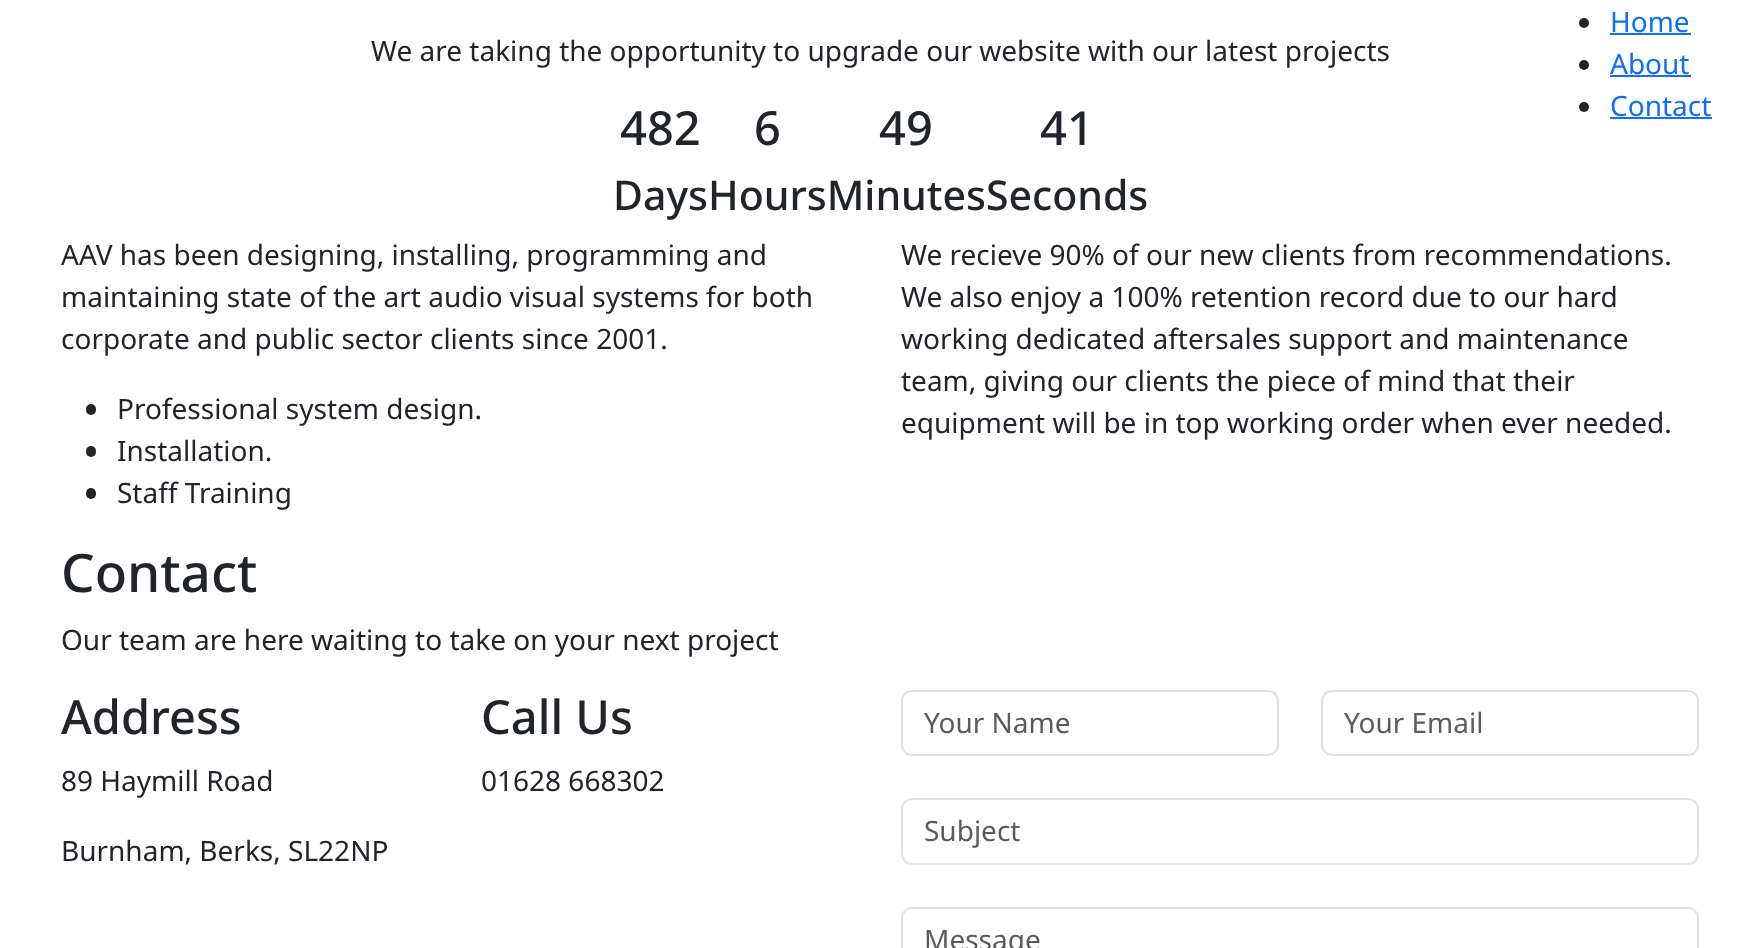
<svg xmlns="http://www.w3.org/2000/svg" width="1759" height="948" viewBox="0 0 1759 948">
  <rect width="100%" height="100%" fill="#fff"/>
  <circle cx="1584" cy="23" r="5" fill="#212529"/>
  <path d="M1610 33h81v2H1610z" fill="#0d6efd"/>
  <circle cx="1584" cy="65" r="5" fill="#212529"/>
  <path d="M1610 75h81v2H1610z" fill="#0d6efd"/>
  <circle cx="1584" cy="107" r="5" fill="#212529"/>
  <path d="M1610 117h102v2H1610z" fill="#0d6efd"/>
  <rect x="86" y="404" width="10" height="11" rx="5" fill="#212529"/>
  <rect x="86" y="446" width="10" height="11" rx="5" fill="#212529"/>
  <rect x="86" y="488" width="10" height="11" rx="5" fill="#212529"/>
  <rect x="902" y="691" width="376" height="64" rx="10" fill="none" stroke="#dee2e6" stroke-width="2"/>
  <rect x="1322" y="691" width="376" height="64" rx="10" fill="none" stroke="#dee2e6" stroke-width="2"/>
  <rect x="902" y="799" width="796" height="65" rx="10" fill="none" stroke="#dee2e6" stroke-width="2"/>
  <rect x="902" y="908" width="796" height="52" rx="10" fill="none" stroke="#dee2e6" stroke-width="2"/>
  <g font-family="Noto Sans" font-size="28" fill="#0d6efd">
    <text x="1610" y="32">Home</text>
    <text x="1610" y="74">About</text>
    <text x="1610" y="116">Contact</text>
  </g>
  <text x="371" y="61" font-family="Noto Sans" font-size="28" fill="#212529">We are taking the opportunity to upgrade our website with our latest projects</text>
  <text x="620" y="145" font-family="Noto Sans" font-size="47" font-weight="500" fill="#212529">482</text>
  <text x="613" y="210" font-family="Noto Sans" font-size="41" font-weight="500" fill="#212529">DaysHoursMinutesSeconds</text>
  <g font-family="Noto Sans" font-size="47" font-weight="500" fill="#212529">
    <text x="754" y="145">6</text>
    <text x="879" y="145">49</text>
    <text x="1040" y="145">41</text>
  </g>
  <g font-family="Noto Sans" font-size="28" fill="#212529">
    <text x="61" y="265">AAV has been designing, installing, programming and</text>
    <text x="61" y="307">maintaining state of the art audio visual systems for both</text>
    <text x="61" y="349">corporate and public sector clients since 2001.</text>
    <text x="117" y="419">Professional system design.</text>
    <text x="117" y="461">Installation.</text>
    <text x="117" y="503">Staff Training</text>
    <text x="901" y="265">We recieve 90% of our new clients from recommendations.</text>
    <text x="901" y="307">We also enjoy a 100% retention record due to our hard</text>
    <text x="901" y="349">working dedicated aftersales support and maintenance</text>
    <text x="901" y="391">team, giving our clients the piece of mind that their</text>
    <text x="901" y="433">equipment will be in top working order when ever needed.</text>
  </g>
  <text x="61" y="592" font-family="Noto Sans" font-size="53" font-weight="500" fill="#212529">Contact</text>
  <text x="61" y="650" font-family="Noto Sans" font-size="28" fill="#212529">Our team are here waiting to take on your next project</text>
  <text x="61" y="734" font-family="Noto Sans" font-size="47" font-weight="500" fill="#212529">Address</text>
  <g font-family="Noto Sans" font-size="28" fill="#212529">
    <text x="61" y="791">89 Haymill Road</text>
    <text x="61" y="861">Burnham, Berks, SL22NP</text>
  </g>
  <text x="481" y="734" font-family="Noto Sans" font-size="47" font-weight="500" fill="#212529">Call Us</text>
  <text x="481" y="791" font-family="Noto Sans" font-size="28" fill="#212529">01628 668302</text>
  <g font-family="Noto Sans" font-size="28" fill="#595c5f">
    <text x="924" y="733">Your Name</text>
    <text x="1344" y="733">Your Email</text>
    <text x="924" y="841">Subject</text>
    <text x="924" y="950">Message</text>
  </g>
</svg>
